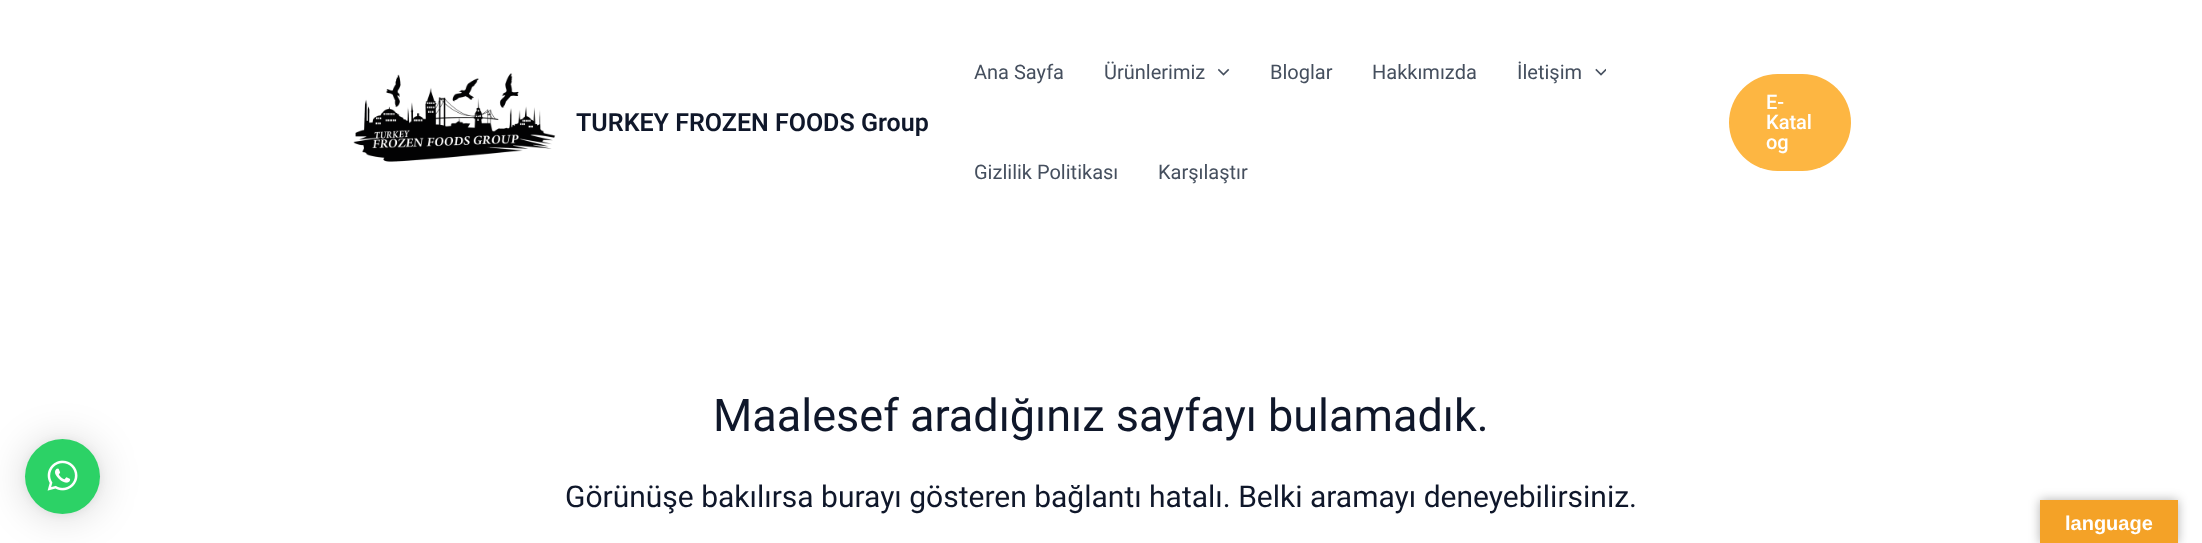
<svg xmlns="http://www.w3.org/2000/svg" width="2202" height="543" viewBox="0 0 2202 543">
  <rect width="100%" height="100%" fill="#fff"/>
  <rect x="25" y="441" width="75" height="75" rx="37.5" fill="#00000029" filter="blur(20px)"/>
  <rect x="25" y="440" width="75" height="75" rx="37.5" fill="#0000000f" filter="blur(4px)"/>
  <circle cx="62.5" cy="476.5" r="37.5" fill="#2cd266"/>
  <image x="47" y="460" width="31" height="31" href="img/1.png"/>
  <image x="353" y="73" width="203" height="89" href="img/2.png"/>
  <image x="1218" y="68" width="12" height="8" href="img/3.png"/>
  <image x="1595" y="68" width="11" height="8" href="img/4.png"/>
  <rect x="1729" y="74" width="122" height="97" rx="48.5" fill="#fdb642"/>
  <path d="M2040 500h138v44H2040z" fill="#0000004d" filter="blur(5.5px)"/>
  <path d="M2040 500h138v43H2040z" fill="#f4a227"/>
  <text x="576" y="131" font-family="Roboto" font-size="25" font-weight="600" fill="#0f172a">TURKEY FROZEN FOODS Group</text>
  <g font-family="Roboto" font-size="20" fill="#454f5e">
    <text x="974" y="79">Ana Sayfa</text>
    <text x="1104" y="79">Ürünlerimiz</text>
    <text x="1270" y="79">Bloglar</text>
    <text x="1372" y="79">Hakkımızda</text>
    <text x="1517" y="79">İletişim</text>
    <text x="974" y="179">Gizlilik Politikası</text>
    <text x="1158" y="179">Karşılaştır</text>
  </g>
  <g font-family="Roboto" font-size="20" font-weight="500" fill="#fff">
    <text x="1766" y="109">E-</text>
    <text x="1766" y="129">Katal</text>
    <text x="1766" y="149">og</text>
  </g>
  <text x="713" y="431" font-family="Roboto" font-size="45" fill="#0f172a">Maalesef aradığınız sayfayı bulamadık.</text>
  <text x="565" y="507" font-family="Roboto" font-size="30" fill="#0f172a">Görünüşe bakılırsa burayı gösteren bağlantı hatalı. Belki aramayı deneyebilirsiniz.</text>
  <text x="2065" y="530" font-family="Liberation Sans" font-size="20" font-weight="bold" fill="#fff">language</text>
</svg>
